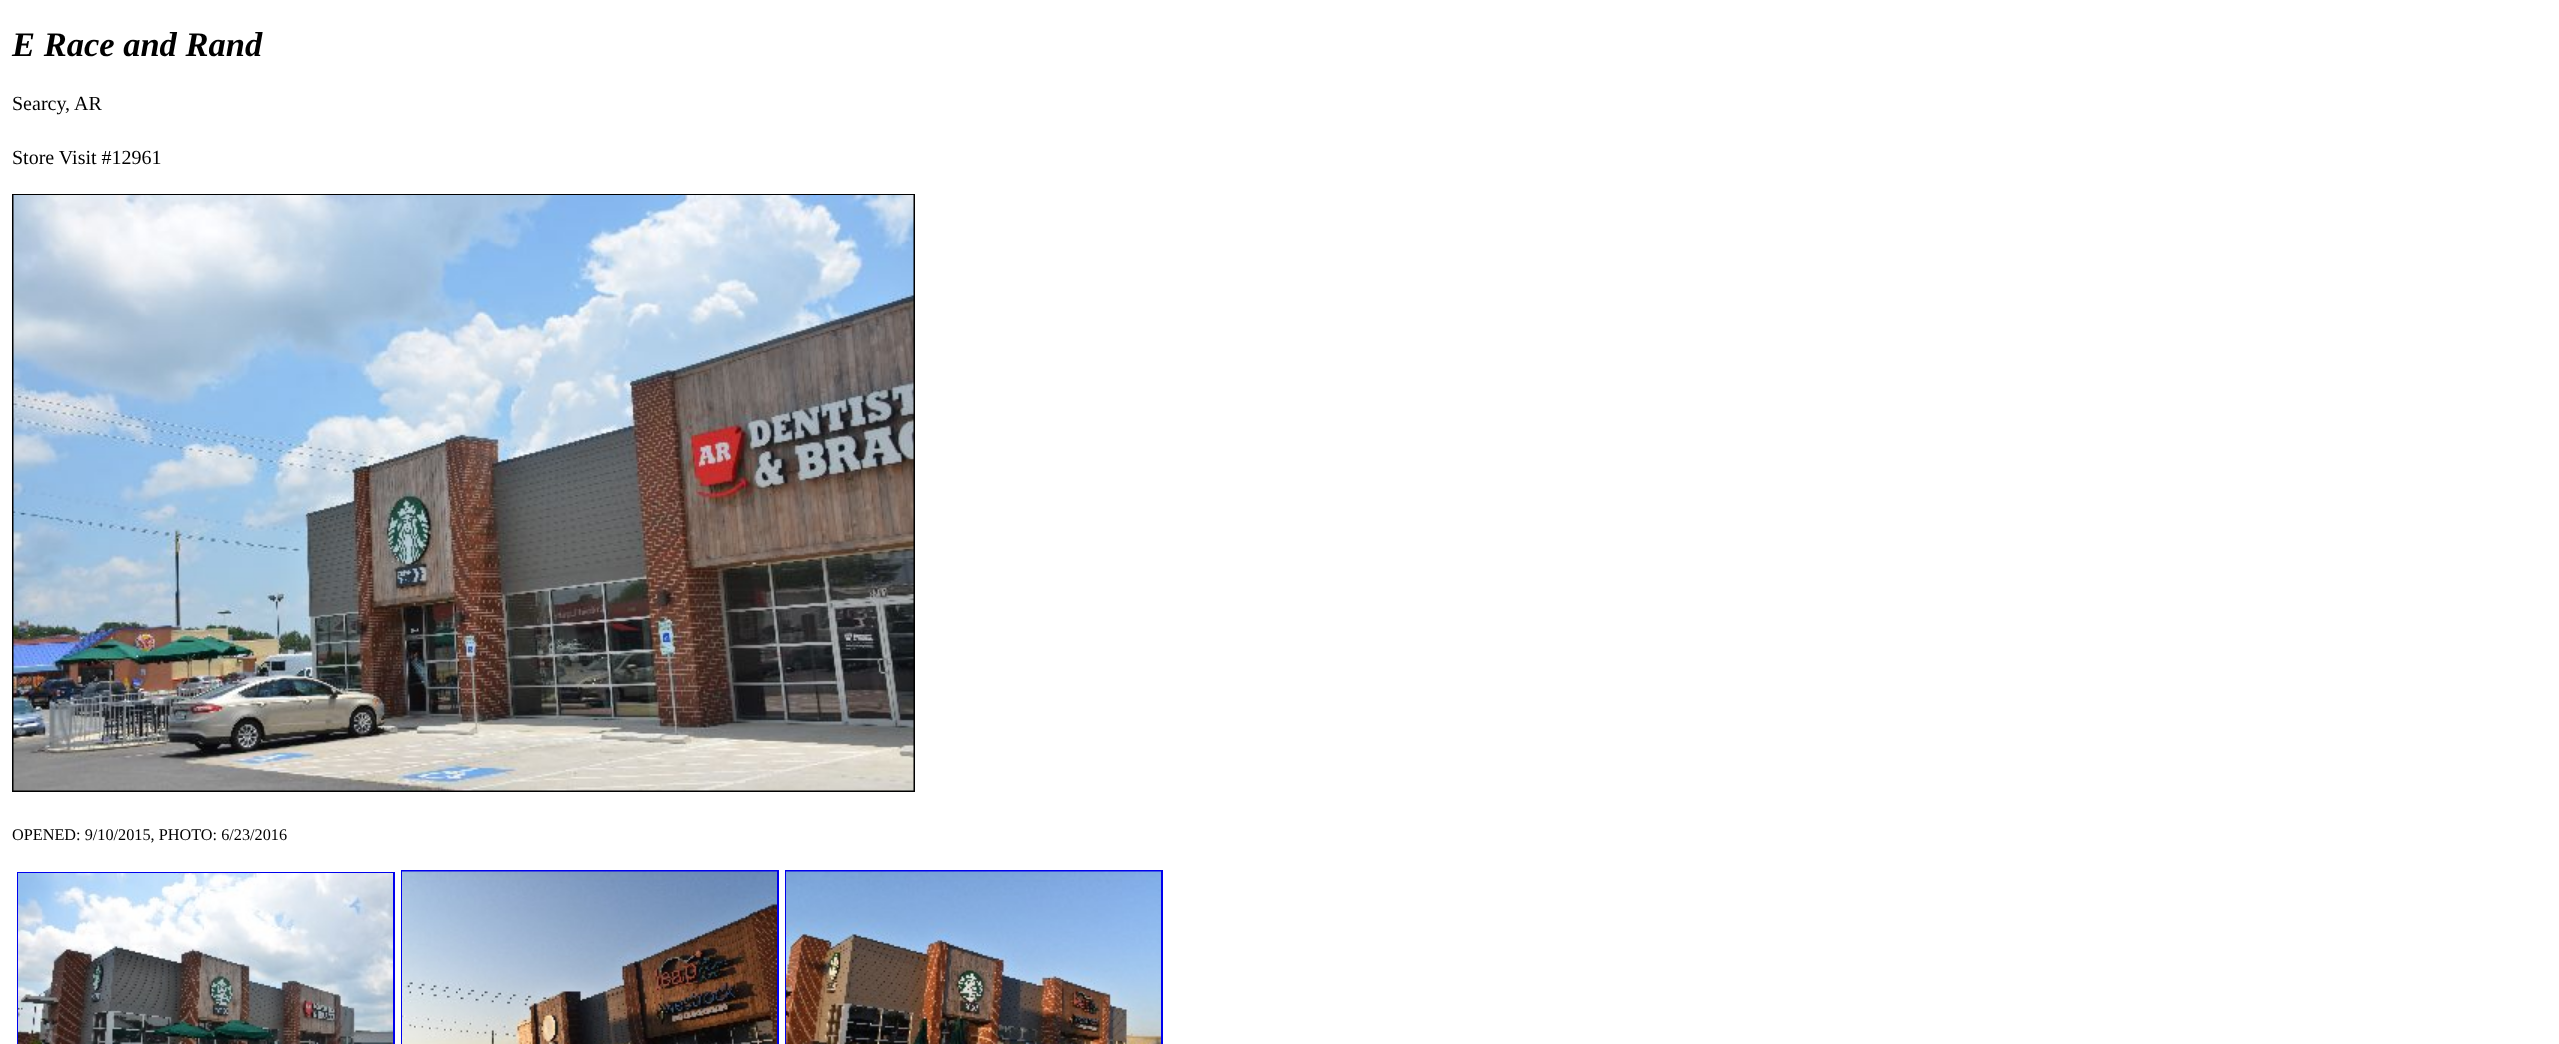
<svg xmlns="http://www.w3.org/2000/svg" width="2559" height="1044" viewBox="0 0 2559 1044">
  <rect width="100%" height="100%" fill="#fff"/>
  <path d="M13 195h901v596H13z" fill="none" stroke="#000" stroke-width="2"/>
  <image x="13" y="195" width="901" height="596" href="img/1.png"/>
  <path d="M18 873h376v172H18z" fill="none" stroke="#00e" stroke-width="2"/>
  <image x="18" y="873" width="375" height="171" href="img/2.png"/>
  <path d="M402 871h376v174H402z" fill="none" stroke="#00e" stroke-width="2"/>
  <image x="402" y="871" width="375" height="173" href="img/3.png"/>
  <path d="M786 871h376v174H786z" fill="none" stroke="#00e" stroke-width="2"/>
  <image x="786" y="871" width="375" height="173" href="img/4.png"/>
  <text x="12" y="56" font-family="Liberation Serif" font-size="34.5" font-weight="bold" font-style="italic" fill="#000">E Race and Rand</text>
  <g font-family="Liberation Serif" font-size="20" fill="#000">
    <text x="12" y="110">Searcy, AR</text>
    <text x="12" y="164">Store Visit #12961</text>
  </g>
  <text x="12" y="840" font-family="Liberation Serif" font-size="16.25" fill="#000">OPENED: 9/10/2015, PHOTO: 6/23/2016</text>
</svg>
